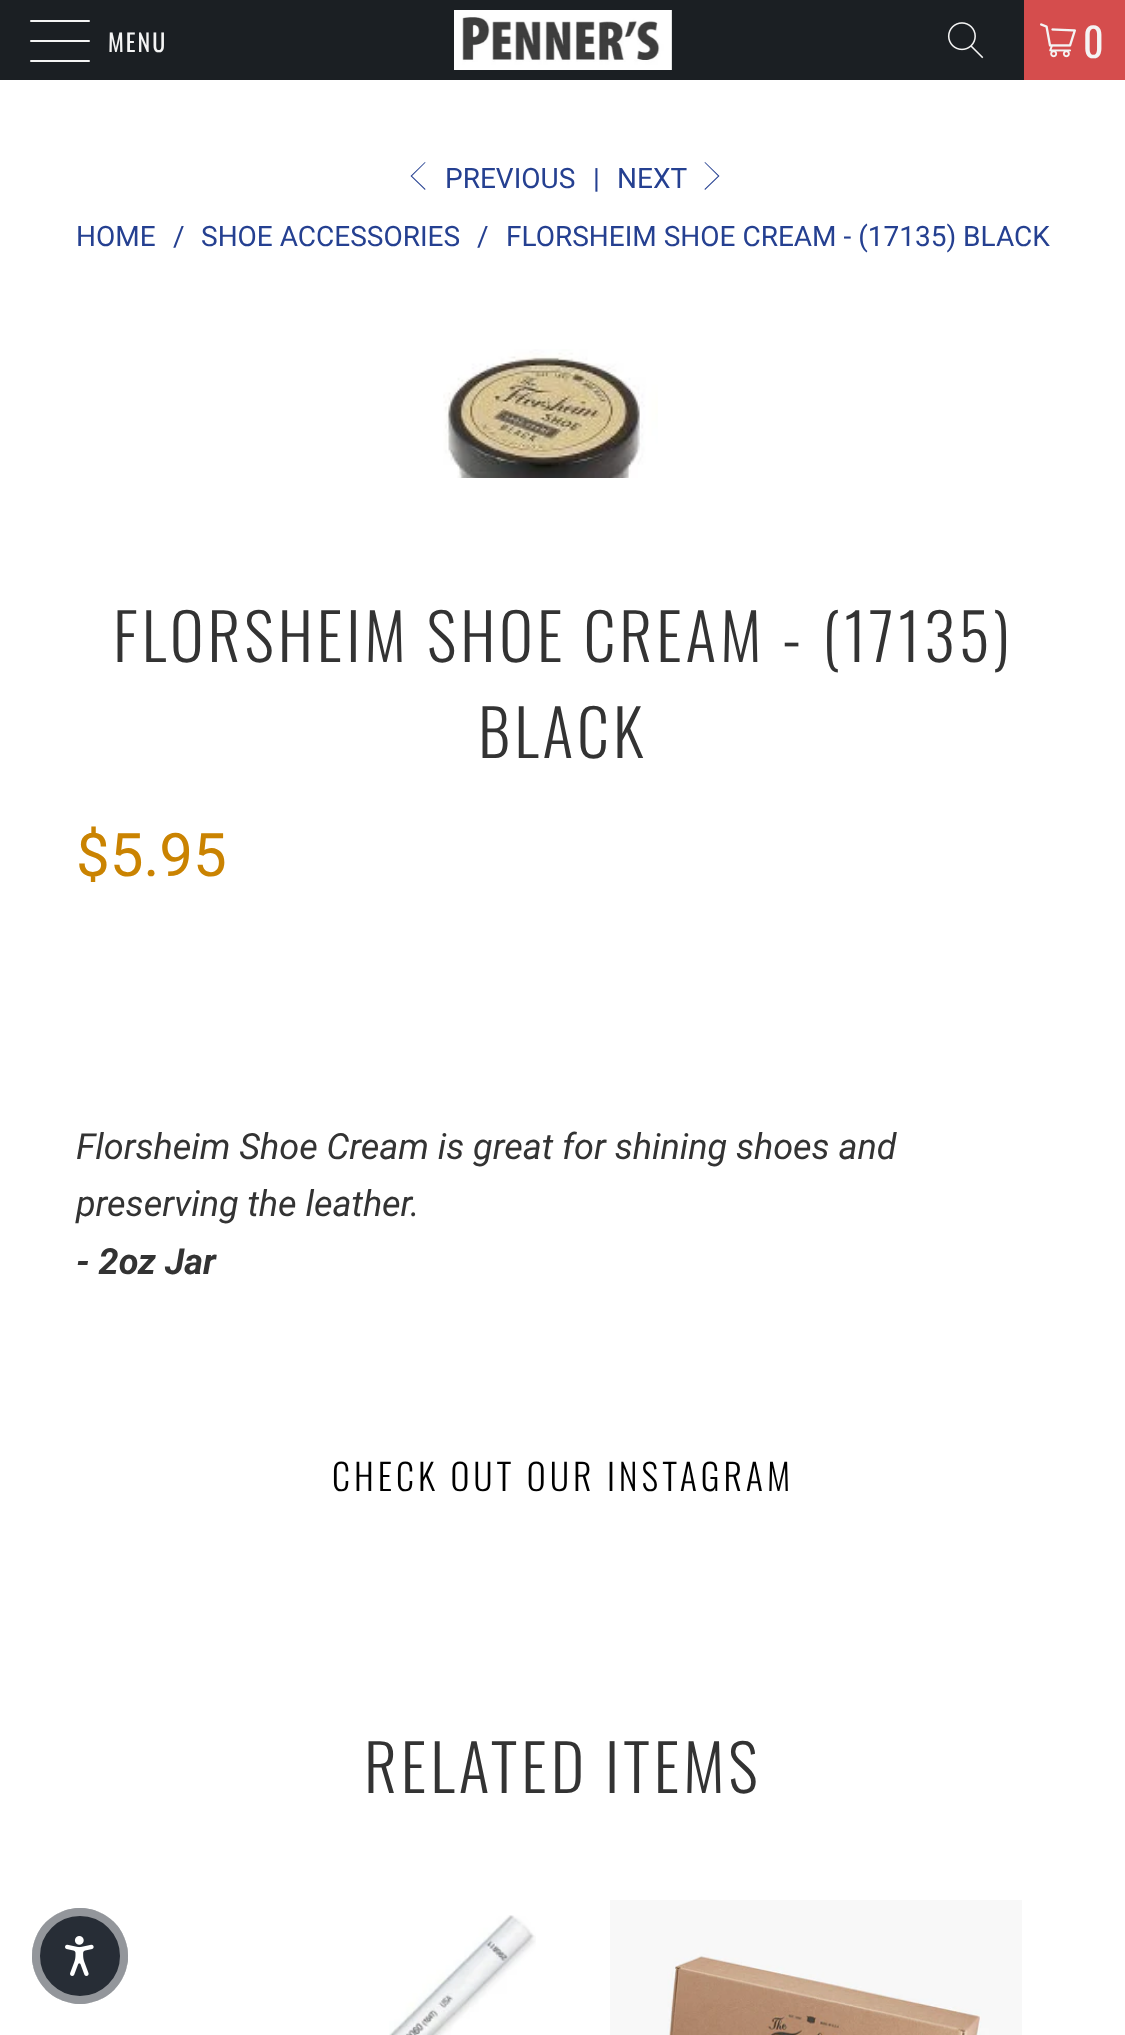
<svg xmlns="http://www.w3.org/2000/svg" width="1125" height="2035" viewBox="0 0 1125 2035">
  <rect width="100%" height="100%" fill="#fff"/>
  <path d="M0 0h1024v80H0z" fill="#1b1f23"/>
  <rect x="30" y="20" width="60" height="2" rx="1" fill="#f4f4f4"/>
  <rect x="30" y="40" width="60" height="2" rx="1" fill="#f4f4f4"/>
  <rect x="30" y="60" width="60" height="2" rx="1" fill="#f4f4f4"/>
  <image x="454" y="10" width="218" height="60" href="img/1.png"/>
  <image x="947" y="22" width="37" height="37" href="img/2.png"/>
  <path d="M1024 0h101v80H1024z" fill="#d54d4d"/>
  <image x="1040" y="23" width="36" height="35" href="img/3.png"/>
  <path d="M425 190L410.5 176L425 162L425.5 162.5L412 176L425.5 189Z" fill="#254091"/>
  <path d="M705 190L704.5 189L718 176L704.5 162.5L705 162L719.5 176Z" fill="#254091"/>
  <image x="443" y="349" width="215" height="129" href="img/4.png"/>
  <image x="389" y="1915" width="147" height="120" href="img/5.png"/>
  <image x="610" y="1900" width="412" height="135" href="img/6.png"/>
  <circle cx="80" cy="1956" r="48" fill="#272d36"/>
  <circle cx="80" cy="1956" r="44" fill="none" stroke="#ffffff80" stroke-width="8"/>
  <image x="65" y="1936" width="29" height="40" href="img/7.png"/>
  <text x="108" y="52" font-family="Oswald" font-size="24" letter-spacing="2" fill="#f4f4f4">MENU</text>
  <text x="1083" y="58" font-family="Oswald" font-size="40" letter-spacing="2" fill="#f4f4f4">0</text>
  <g font-family="Roboto" font-size="28" fill="#254091">
    <text x="445" y="188">PREVIOUS</text>
    <text x="593" y="188">|</text>
    <text x="617" y="188">NEXT</text>
    <text x="76" y="246">HOME</text>
    <text x="173" y="246">/</text>
    <text x="201" y="246">SHOE ACCESSORIES</text>
    <text x="477" y="246">/</text>
    <text x="506" y="246">FLORSHEIM SHOE CREAM - (17135) BLACK</text>
  </g>
  <g font-family="Oswald" font-size="64" font-weight="300" letter-spacing="4" fill="#333">
    <text x="113" y="662">FLORSHEIM SHOE CREAM - (17135)</text>
    <text x="478" y="758">BLACK</text>
  </g>
  <text x="76" y="876" font-family="Roboto" font-size="60" fill="#ca8301">$5.95</text>
  <g font-family="Roboto" font-size="36" font-style="italic" fill="#333">
    <text x="76" y="1159">Florsheim Shoe Cream is great for shining shoes and</text>
    <text x="76" y="1216">preserving the leather.</text>
  </g>
  <text x="76" y="1274" font-family="Roboto" font-size="36" font-weight="bold" font-style="italic" fill="#333">- 2oz Jar</text>
  <text x="332" y="1491" font-family="Oswald" font-size="36" font-weight="300" letter-spacing="4" fill="#000">CHECK OUT OUR INSTAGRAM</text>
  <text x="364" y="1793" font-family="Oswald" font-size="64" font-weight="300" letter-spacing="4" fill="#333">RELATED ITEMS</text>
</svg>
